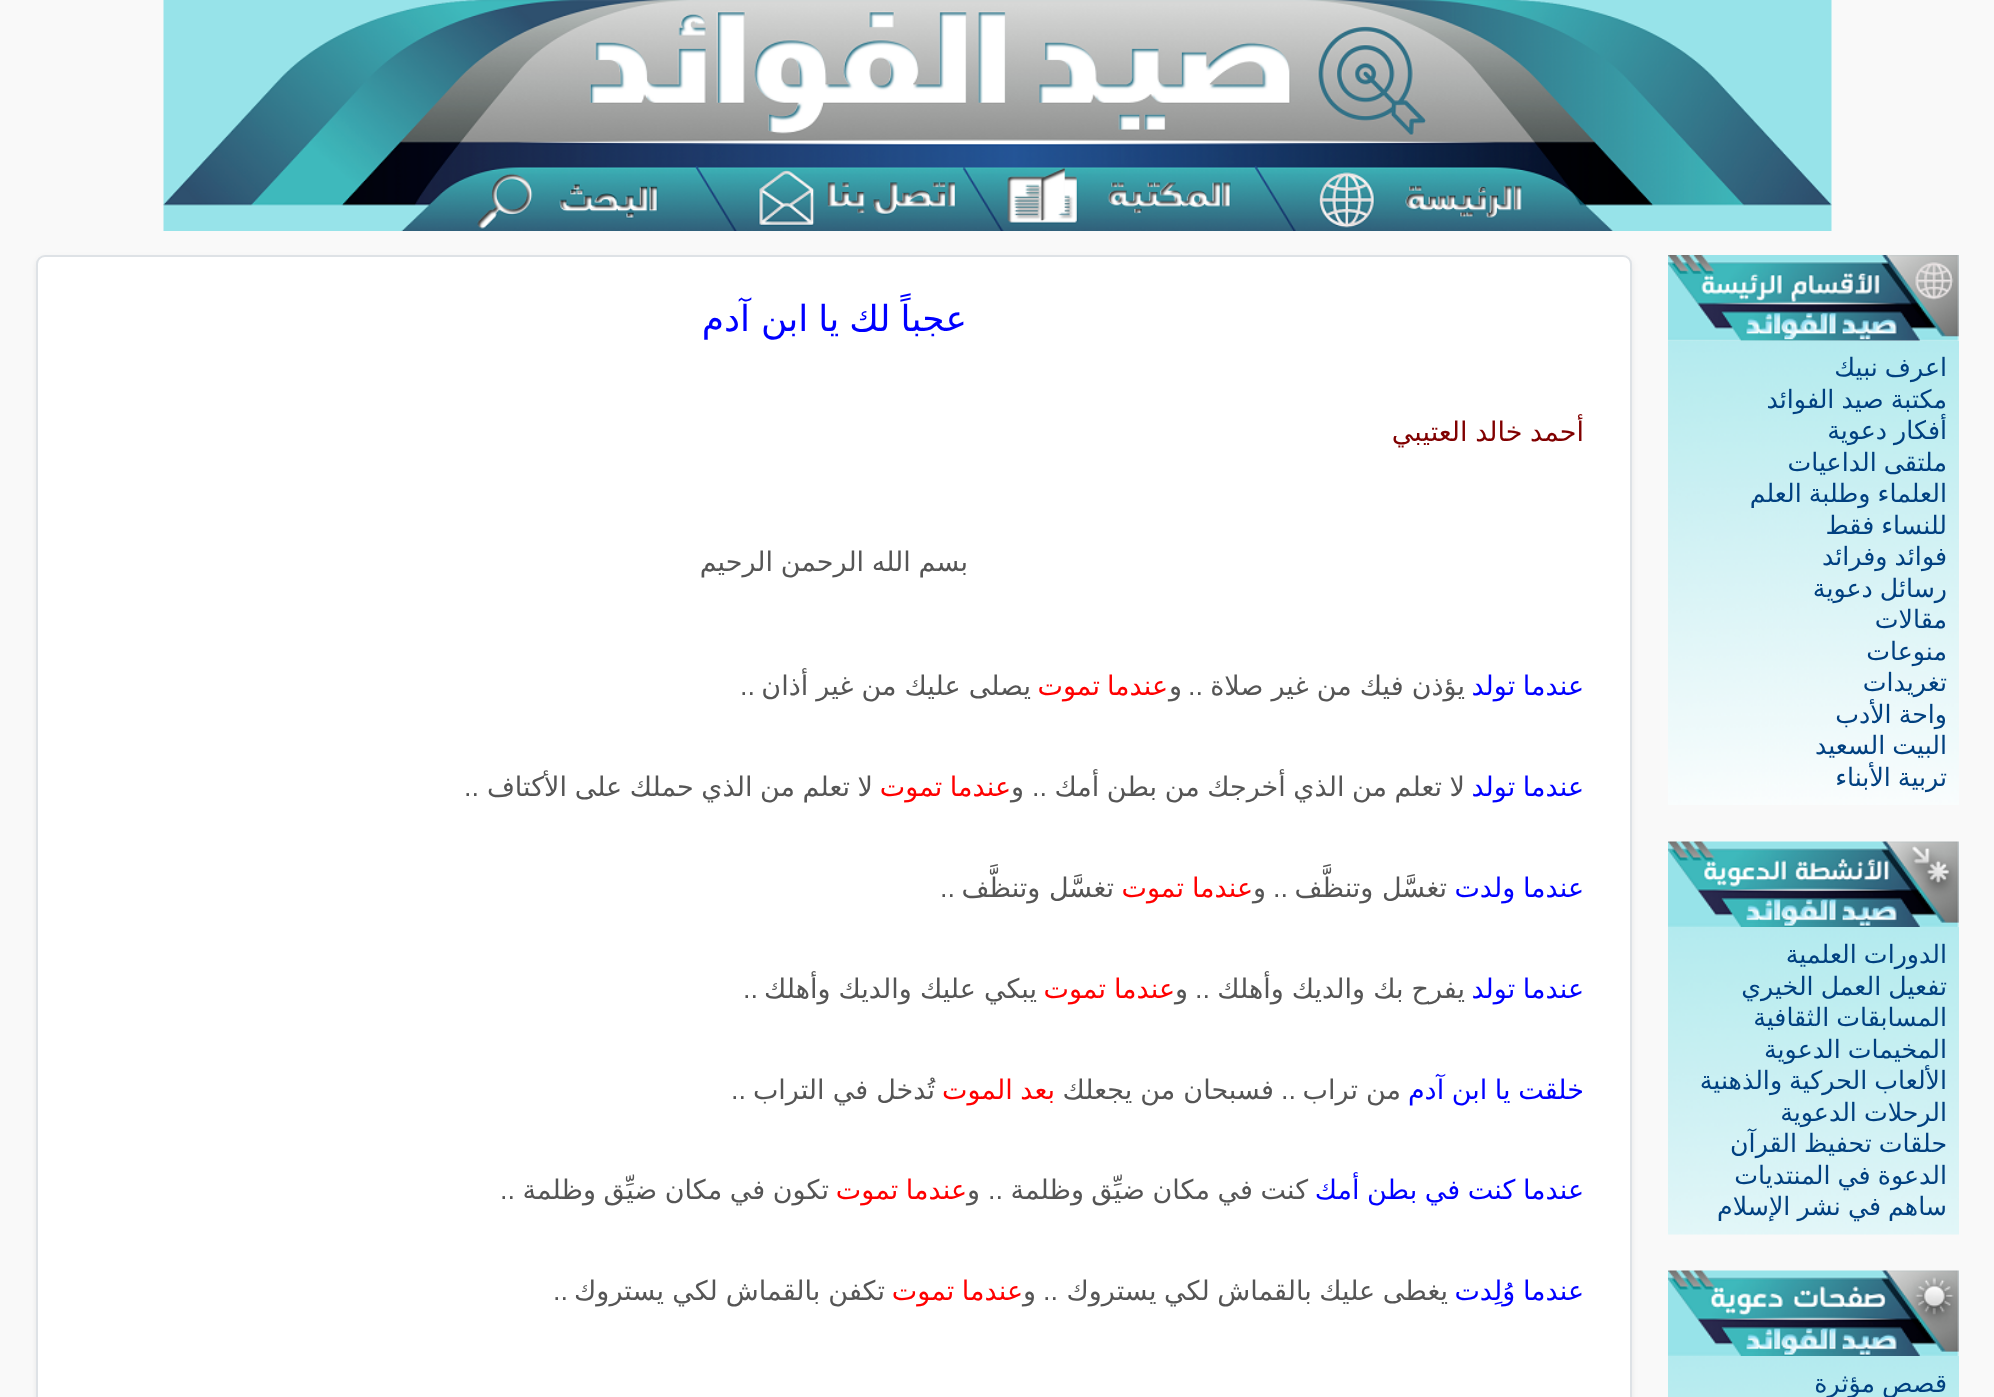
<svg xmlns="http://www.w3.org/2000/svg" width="1994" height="1397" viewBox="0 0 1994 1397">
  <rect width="100%" height="100%" fill="#f9f9f9"/>
  <image x="163" y="0" width="1669" height="231" href="img/1.png"/>
  <image x="1668" y="340" width="291" height="465" href="img/3.png"/>
  <image x="1668" y="255" width="291" height="86" href="img/2.png"/>
  <image x="1668" y="841" width="291" height="86" href="img/4.png"/>
  <image x="1668" y="927" width="291" height="308" href="img/5.png"/>
  <image x="1668" y="1270" width="291" height="86" href="img/6.png"/>
  <image x="1668" y="1356" width="291" height="41" href="img/7.png"/>
  <rect x="36" y="258" width="1596" height="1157" rx="9" fill="#00000012" filter="blur(3px)"/>
  <rect x="37" y="256" width="1594" height="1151" rx="8" fill="#fff" stroke="#dee2e6" stroke-width="2"/>
  <g font-family="DejaVu Sans" font-size="25.25" direction="rtl" fill="#004080">
    <text x="1947" y="376" word-spacing="-1">اعرف نبيك</text>
    <text x="1947" y="408" word-spacing="-1">مكتبة صيد الفوائد</text>
    <text x="1947" y="439" word-spacing="-1">أفكار دعوية</text>
    <text x="1947" y="471" word-spacing="-1">ملتقى الداعيات</text>
    <text x="1947" y="502" word-spacing="-1">العلماء وطلبة العلم</text>
    <text x="1947" y="534" word-spacing="-1">للنساء فقط</text>
    <text x="1947" y="565" word-spacing="-1">فوائد وفرائد</text>
    <text x="1947" y="597" word-spacing="-1">رسائل دعوية</text>
    <text x="1947" y="628">مقالات</text>
    <text x="1947" y="660">منوعات</text>
    <text x="1947" y="691">تغريدات</text>
    <text x="1947" y="723" word-spacing="-1">واحة الأدب</text>
    <text x="1947" y="754" word-spacing="-1">البيت السعيد</text>
    <text x="1947" y="786" word-spacing="-1">تربية الأبناء</text>
    <text x="1947" y="963" word-spacing="-1">الدورات العلمية</text>
    <text x="1947" y="995" word-spacing="-1">تفعيل العمل الخيري</text>
    <text x="1947" y="1026" word-spacing="-1">المسابقات الثقافية</text>
    <text x="1947" y="1058" word-spacing="-1">المخيمات الدعوية</text>
    <text x="1947" y="1089" word-spacing="-1">الألعاب الحركية والذهنية</text>
    <text x="1947" y="1121" word-spacing="-1">الرحلات الدعوية</text>
    <text x="1947" y="1152" word-spacing="-1">حلقات تحفيظ القرآن</text>
    <text x="1947" y="1184" word-spacing="-1">الدعوة في المنتديات</text>
    <text x="1947" y="1215" word-spacing="-1">ساهم في نشر الإسلام</text>
    <text x="1947" y="1392" word-spacing="-1">قصص مؤثرة</text>
  </g>
  <g font-family="DejaVu Sans" font-size="36" direction="rtl" fill="#00f">
    <text x="967" y="331" word-spacing="-1.5">عجباً لك يا ابن</text>
    <text x="750" y="331">آدم</text>
  </g>
  <text x="1584" y="441" word-spacing="-1" font-family="DejaVu Sans" font-size="27" direction="rtl" fill="#800000">أحمد خالد العتيبي</text>
  <text x="968" y="571" word-spacing="-1" font-family="DejaVu Sans" font-size="27" direction="rtl" fill="#555">بسم الله الرحمن الرحيم</text>
  <text x="1584" y="695" word-spacing="-1" font-family="DejaVu Sans" font-size="27" direction="rtl" fill="#00f">عندما تولد</text>
  <text x="1465" y="695" word-spacing="-0.5" font-family="DejaVu Sans" font-size="27" direction="rtl" fill="#555">يؤذن فيك من غير صلاة</text>
  <text x="1203" y="695" font-family="Liberation Sans" font-size="27" direction="rtl" fill="#555">..</text>
  <text x="1182" y="695" font-family="DejaVu Sans" font-size="27" direction="rtl" fill="#555">و</text>
  <g font-family="DejaVu Sans" font-size="27" direction="rtl" fill="#f00">
    <text x="1168" y="695">عندما</text>
    <text x="1100" y="695">تموت</text>
  </g>
  <text x="1031" y="695" word-spacing="-0.5" font-family="DejaVu Sans" font-size="27" direction="rtl" fill="#555">يصلى عليك من غير أذان</text>
  <text x="755" y="695" font-family="Liberation Sans" font-size="27" direction="rtl" fill="#555">..</text>
  <text x="1584" y="796" word-spacing="-1" font-family="DejaVu Sans" font-size="27" direction="rtl" fill="#00f">عندما تولد</text>
  <text x="1465" y="796" word-spacing="-1" font-family="DejaVu Sans" font-size="27" direction="rtl" fill="#555">لا تعلم من الذي أخرجك من بطن أمك</text>
  <text x="1047" y="796" font-family="Liberation Sans" font-size="27" direction="rtl" fill="#555">..</text>
  <text x="1024" y="796" font-family="DejaVu Sans" font-size="27" direction="rtl" fill="#555">و</text>
  <text x="1011" y="796" word-spacing="-1" font-family="DejaVu Sans" font-size="27" direction="rtl" fill="#f00">عندما تموت</text>
  <g font-family="DejaVu Sans" font-size="27" direction="rtl" fill="#555">
    <text x="873" y="796" word-spacing="-1">لا تعلم من الذي حملك على</text>
    <text x="567" y="796">الأكتاف</text>
  </g>
  <text x="479" y="796" font-family="Liberation Sans" font-size="27" direction="rtl" fill="#555">..</text>
  <text x="1584" y="897" word-spacing="-1" font-family="DejaVu Sans" font-size="27" direction="rtl" fill="#00f">عندما ولدت</text>
  <text x="1447" y="897" font-family="DejaVu Sans" font-size="27" direction="rtl" fill="#555">تغسَّل وتنظَّف</text>
  <text x="1288" y="897" font-family="Liberation Sans" font-size="27" direction="rtl" fill="#555">..</text>
  <text x="1266" y="897" font-family="DejaVu Sans" font-size="27" direction="rtl" fill="#555">و</text>
  <g font-family="DejaVu Sans" font-size="27" direction="rtl" fill="#f00">
    <text x="1253" y="897">عندما</text>
    <text x="1184" y="897">تموت</text>
  </g>
  <text x="1114" y="897" font-family="DejaVu Sans" font-size="27" direction="rtl" fill="#555">تغسَّل وتنظَّف</text>
  <text x="955" y="897" font-family="Liberation Sans" font-size="27" direction="rtl" fill="#555">..</text>
  <text x="1584" y="998" word-spacing="-1" font-family="DejaVu Sans" font-size="27" direction="rtl" fill="#00f">عندما تولد</text>
  <text x="1465" y="998" word-spacing="-0.5" font-family="DejaVu Sans" font-size="27" direction="rtl" fill="#555">يفرح بك والديك وأهلك</text>
  <text x="1210" y="998" font-family="Liberation Sans" font-size="27" direction="rtl" fill="#555">..</text>
  <text x="1188" y="998" font-family="DejaVu Sans" font-size="27" direction="rtl" fill="#555">و</text>
  <g font-family="DejaVu Sans" font-size="27" direction="rtl" fill="#f00">
    <text x="1175" y="998">عندما</text>
    <text x="1106" y="998">تموت</text>
  </g>
  <text x="1037" y="998" word-spacing="-0.5" font-family="DejaVu Sans" font-size="27" direction="rtl" fill="#555">يبكي عليك والديك وأهلك</text>
  <text x="758" y="998" font-family="Liberation Sans" font-size="27" direction="rtl" fill="#555">..</text>
  <text x="1584" y="1099" word-spacing="-1" font-family="DejaVu Sans" font-size="27" direction="rtl" fill="#00f">خلقت يا ابن آدم</text>
  <text x="1401" y="1099" word-spacing="-0.5" font-family="DejaVu Sans" font-size="27" direction="rtl" fill="#555">من تراب</text>
  <text x="1296" y="1099" font-family="Liberation Sans" font-size="27" direction="rtl" fill="#555">..</text>
  <text x="1274" y="1099" word-spacing="-0.5" font-family="DejaVu Sans" font-size="27" direction="rtl" fill="#555">فسبحان من يجعلك</text>
  <text x="1055" y="1099" word-spacing="-1" font-family="DejaVu Sans" font-size="27" direction="rtl" fill="#f00">بعد الموت</text>
  <text x="935" y="1099" word-spacing="-0.5" font-family="DejaVu Sans" font-size="27" direction="rtl" fill="#555">تُدخل في التراب</text>
  <text x="746" y="1099" font-family="Liberation Sans" font-size="27" direction="rtl" fill="#555">..</text>
  <text x="1584" y="1199" word-spacing="-1" font-family="DejaVu Sans" font-size="27" direction="rtl" fill="#00f">عندما كنت في بطن أمك</text>
  <g font-family="DejaVu Sans" font-size="27" direction="rtl" fill="#555">
    <text x="1308" y="1199" word-spacing="-1">كنت في مكان ضيِّق</text>
    <text x="1084" y="1199">وظلمة</text>
  </g>
  <text x="1003" y="1199" font-family="Liberation Sans" font-size="27" direction="rtl" fill="#555">..</text>
  <text x="980" y="1199" font-family="DejaVu Sans" font-size="27" direction="rtl" fill="#555">و</text>
  <text x="967" y="1199" word-spacing="-1" font-family="DejaVu Sans" font-size="27" direction="rtl" fill="#f00">عندما تموت</text>
  <g font-family="DejaVu Sans" font-size="27" direction="rtl" fill="#555">
    <text x="829" y="1199" word-spacing="-1">تكون في مكان ضيِّق</text>
    <text x="596" y="1199">وظلمة</text>
  </g>
  <text x="515" y="1199" font-family="Liberation Sans" font-size="27" direction="rtl" fill="#555">..</text>
  <text x="1584" y="1300" word-spacing="-1" font-family="DejaVu Sans" font-size="27" direction="rtl" fill="#00f">عندما وُلِدت</text>
  <text x="1448" y="1300" word-spacing="-1" font-family="DejaVu Sans" font-size="27" direction="rtl" fill="#555">يغطى عليك بالقماش لكي يستروك</text>
  <text x="1058" y="1300" font-family="Liberation Sans" font-size="27" direction="rtl" fill="#555">..</text>
  <text x="1036" y="1300" font-family="DejaVu Sans" font-size="27" direction="rtl" fill="#555">و</text>
  <text x="1023" y="1300" word-spacing="-1" font-family="DejaVu Sans" font-size="27" direction="rtl" fill="#f00">عندما تموت</text>
  <text x="885" y="1300" word-spacing="-0.5" font-family="DejaVu Sans" font-size="27" direction="rtl" fill="#555">تكفن بالقماش لكي يستروك</text>
  <text x="568" y="1300" font-family="Liberation Sans" font-size="27" direction="rtl" fill="#555">..</text>
</svg>
